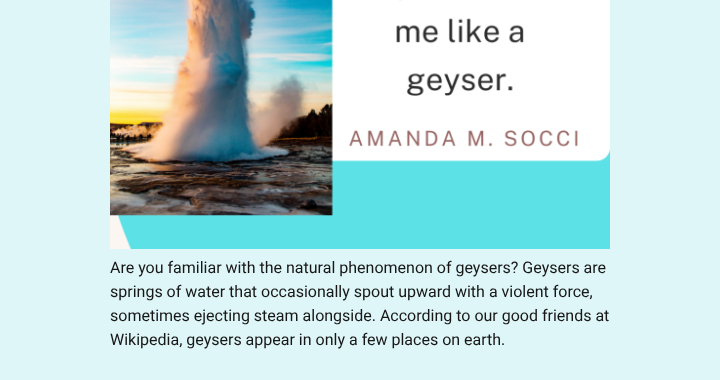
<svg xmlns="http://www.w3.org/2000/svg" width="720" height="380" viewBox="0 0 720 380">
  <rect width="100%" height="100%" fill="#def6f8"/>
  <image x="110" y="0" width="500" height="249" href="img/1.png"/>
  <g font-family="Roboto" font-size="16" fill="#181717">
    <text x="110" y="273">Are you familiar with the natural phenomenon of geysers? Geysers are</text>
    <text x="110" y="297">springs of water that occasionally spout upward with a violent force,</text>
    <text x="110" y="321">sometimes ejecting steam alongside. According to our good friends at</text>
    <text x="110" y="345">Wikipedia, geysers appear in only a few places on earth.</text>
  </g>
</svg>
